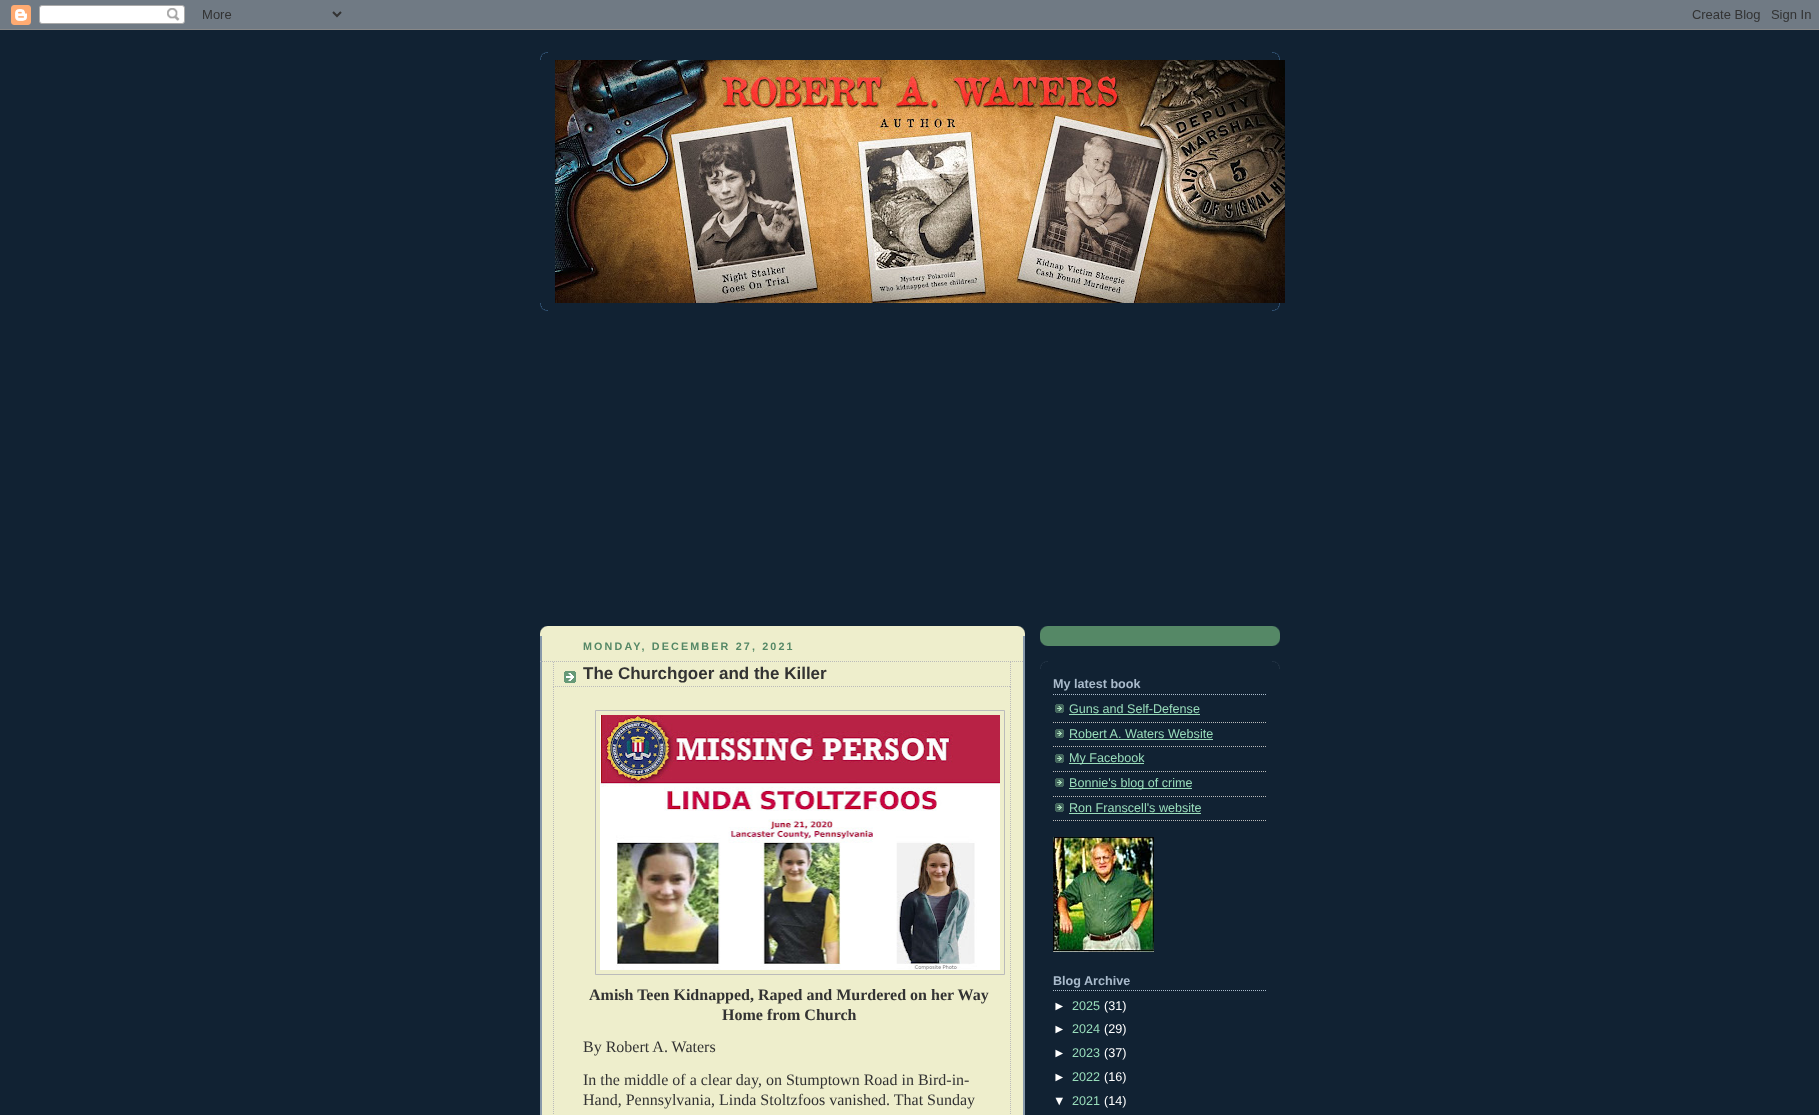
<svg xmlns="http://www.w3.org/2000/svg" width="1819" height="1115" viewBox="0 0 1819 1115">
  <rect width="100%" height="100%" fill="#123"/>
  <image x="0" y="0" width="1819" height="30" href="img/1.png"/>
  <image x="540" y="52" width="740" height="8" href="img/2.png"/>
  <image x="540" y="303" width="740" height="8" href="img/3.png"/>
  <image x="555" y="60" width="730" height="243" href="img/4.png"/>
  <path d="M540 626h485v489H540z" fill="#eec"/>
  <image x="540" y="626" width="485" height="8" href="img/5.png"/>
  <image x="540" y="636" width="485" height="479" href="img/6.png"/>
  <path d="M540 661.5H1024" fill="none" stroke="#bbb" stroke-dasharray="1 1"/>
  <image x="564" y="671" width="12" height="12" href="img/7.png"/>
  <path d="M1010.5 662V687" fill="none" stroke="#bbb" stroke-dasharray="1 1"/>
  <path d="M553 686.5H1011" fill="none" stroke="#bbb" stroke-dasharray="1 1"/>
  <path d="M553.5 662V687" fill="none" stroke="#bbb" stroke-dasharray="1 1"/>
  <path d="M1010.5 687V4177" fill="none" stroke="#bbb" stroke-dasharray="1 1"/>
  <path d="M553.5 687V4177" fill="none" stroke="#bbb" stroke-dasharray="1 1"/>
  <path d="M595.5 710.5h409v264H595.5z" fill="none" stroke="#bbb"/>
  <image x="600" y="715" width="400" height="255" href="img/8.png"/>
  <path d="M1040 626h240v20H1040z" fill="#586"/>
  <image x="1040" y="638" width="240" height="8" href="img/9.png"/>
  <image x="1040" y="626" width="240" height="8" href="img/10.png"/>
  <image x="1040" y="661" width="240" height="8" href="img/11.png"/>
  <path d="M1053 694.5H1267" fill="none" stroke="#abc" stroke-dasharray="1 1"/>
  <image x="1055" y="704" width="9" height="9" href="img/12.png"/>
  <path d="M1053 722.5H1267" fill="none" stroke="#bbb" stroke-dasharray="1 1"/>
  <path d="M1069 714h131v1H1069z" fill="#9db"/>
  <image x="1055" y="729" width="9" height="9" href="img/12.png"/>
  <path d="M1053 746.5H1267" fill="none" stroke="#bbb" stroke-dasharray="1 1"/>
  <path d="M1069 739h144v1H1069z" fill="#9db"/>
  <image x="1055" y="754" width="9" height="9" href="img/12.png"/>
  <path d="M1053 771.5H1267" fill="none" stroke="#bbb" stroke-dasharray="1 1"/>
  <path d="M1069 763h75v1H1069z" fill="#9db"/>
  <image x="1055" y="778" width="9" height="9" href="img/12.png"/>
  <path d="M1053 796.5H1267" fill="none" stroke="#bbb" stroke-dasharray="1 1"/>
  <path d="M1069 788h123v1H1069z" fill="#9db"/>
  <image x="1055" y="803" width="9" height="9" href="img/12.png"/>
  <path d="M1053 820.5H1267" fill="none" stroke="#bbb" stroke-dasharray="1 1"/>
  <path d="M1069 813h132v1H1069z" fill="#9db"/>
  <image x="1053" y="837" width="101" height="115" href="img/13.png"/>
  <path d="M1053 990.5H1267" fill="none" stroke="#abc" stroke-dasharray="1 1"/>
  <text x="583" y="650" font-family="Liberation Sans" font-size="10.75" font-weight="bold" letter-spacing="2.15" fill="#586">MONDAY, DECEMBER 27, 2021</text>
  <text x="583" y="679" font-family="Liberation Sans" font-size="17" font-weight="bold" fill="#333">The Churchgoer and the Killer</text>
  <g font-family="Liberation Serif" font-size="16" font-weight="bold" fill="#333">
    <text x="589" y="1000">Amish Teen Kidnapped, Raped and Murdered on her Way</text>
    <text x="722" y="1020">Home from Church</text>
  </g>
  <g font-family="Liberation Serif" font-size="16" fill="#333">
    <text x="583" y="1052">By Robert A. Waters</text>
    <text x="583" y="1085">In the middle of a clear day, on Stumptown Road in Bird-in-</text>
    <text x="583" y="1105">Hand, Pennsylvania, Linda Stoltzfoos vanished. That Sunday</text>
  </g>
  <text x="1053" y="688" font-family="Liberation Sans" font-size="12.6" font-weight="bold" fill="#abc">My latest book</text>
  <g font-family="Liberation Sans" font-size="12.6" fill="#9db">
    <text x="1069" y="713">Guns and Self-Defense</text>
    <text x="1069" y="738">Robert A. Waters Website</text>
    <text x="1069" y="762">My Facebook</text>
    <text x="1069" y="787">Bonnie's blog of crime</text>
    <text x="1069" y="812">Ron Franscell's website</text>
  </g>
  <text x="1053" y="985" font-family="Liberation Sans" font-size="12.6" font-weight="bold" fill="#abc">Blog Archive</text>
  <text x="1053" y="1010" font-family="Liberation Sans" font-size="12.6" fill="#fff">►</text>
  <text x="1072" y="1010" font-family="Liberation Sans" font-size="12.6" fill="#9db">2025</text>
  <g font-family="Liberation Sans" font-size="12.6" fill="#fff">
    <text x="1104" y="1010">(31)</text>
    <text x="1053" y="1033">►</text>
  </g>
  <text x="1072" y="1033" font-family="Liberation Sans" font-size="12.6" fill="#9db">2024</text>
  <g font-family="Liberation Sans" font-size="12.6" fill="#fff">
    <text x="1104" y="1033">(29)</text>
    <text x="1053" y="1057">►</text>
  </g>
  <text x="1072" y="1057" font-family="Liberation Sans" font-size="12.6" fill="#9db">2023</text>
  <g font-family="Liberation Sans" font-size="12.6" fill="#fff">
    <text x="1104" y="1057">(37)</text>
    <text x="1053" y="1081">►</text>
  </g>
  <text x="1072" y="1081" font-family="Liberation Sans" font-size="12.6" fill="#9db">2022</text>
  <g font-family="Liberation Sans" font-size="12.6" fill="#fff">
    <text x="1104" y="1081">(16)</text>
    <text x="1053" y="1105">▼</text>
  </g>
  <text x="1072" y="1105" font-family="Liberation Sans" font-size="12.6" fill="#9db">2021</text>
  <text x="1104" y="1105" font-family="Liberation Sans" font-size="12.6" fill="#fff">(14)</text>
</svg>
